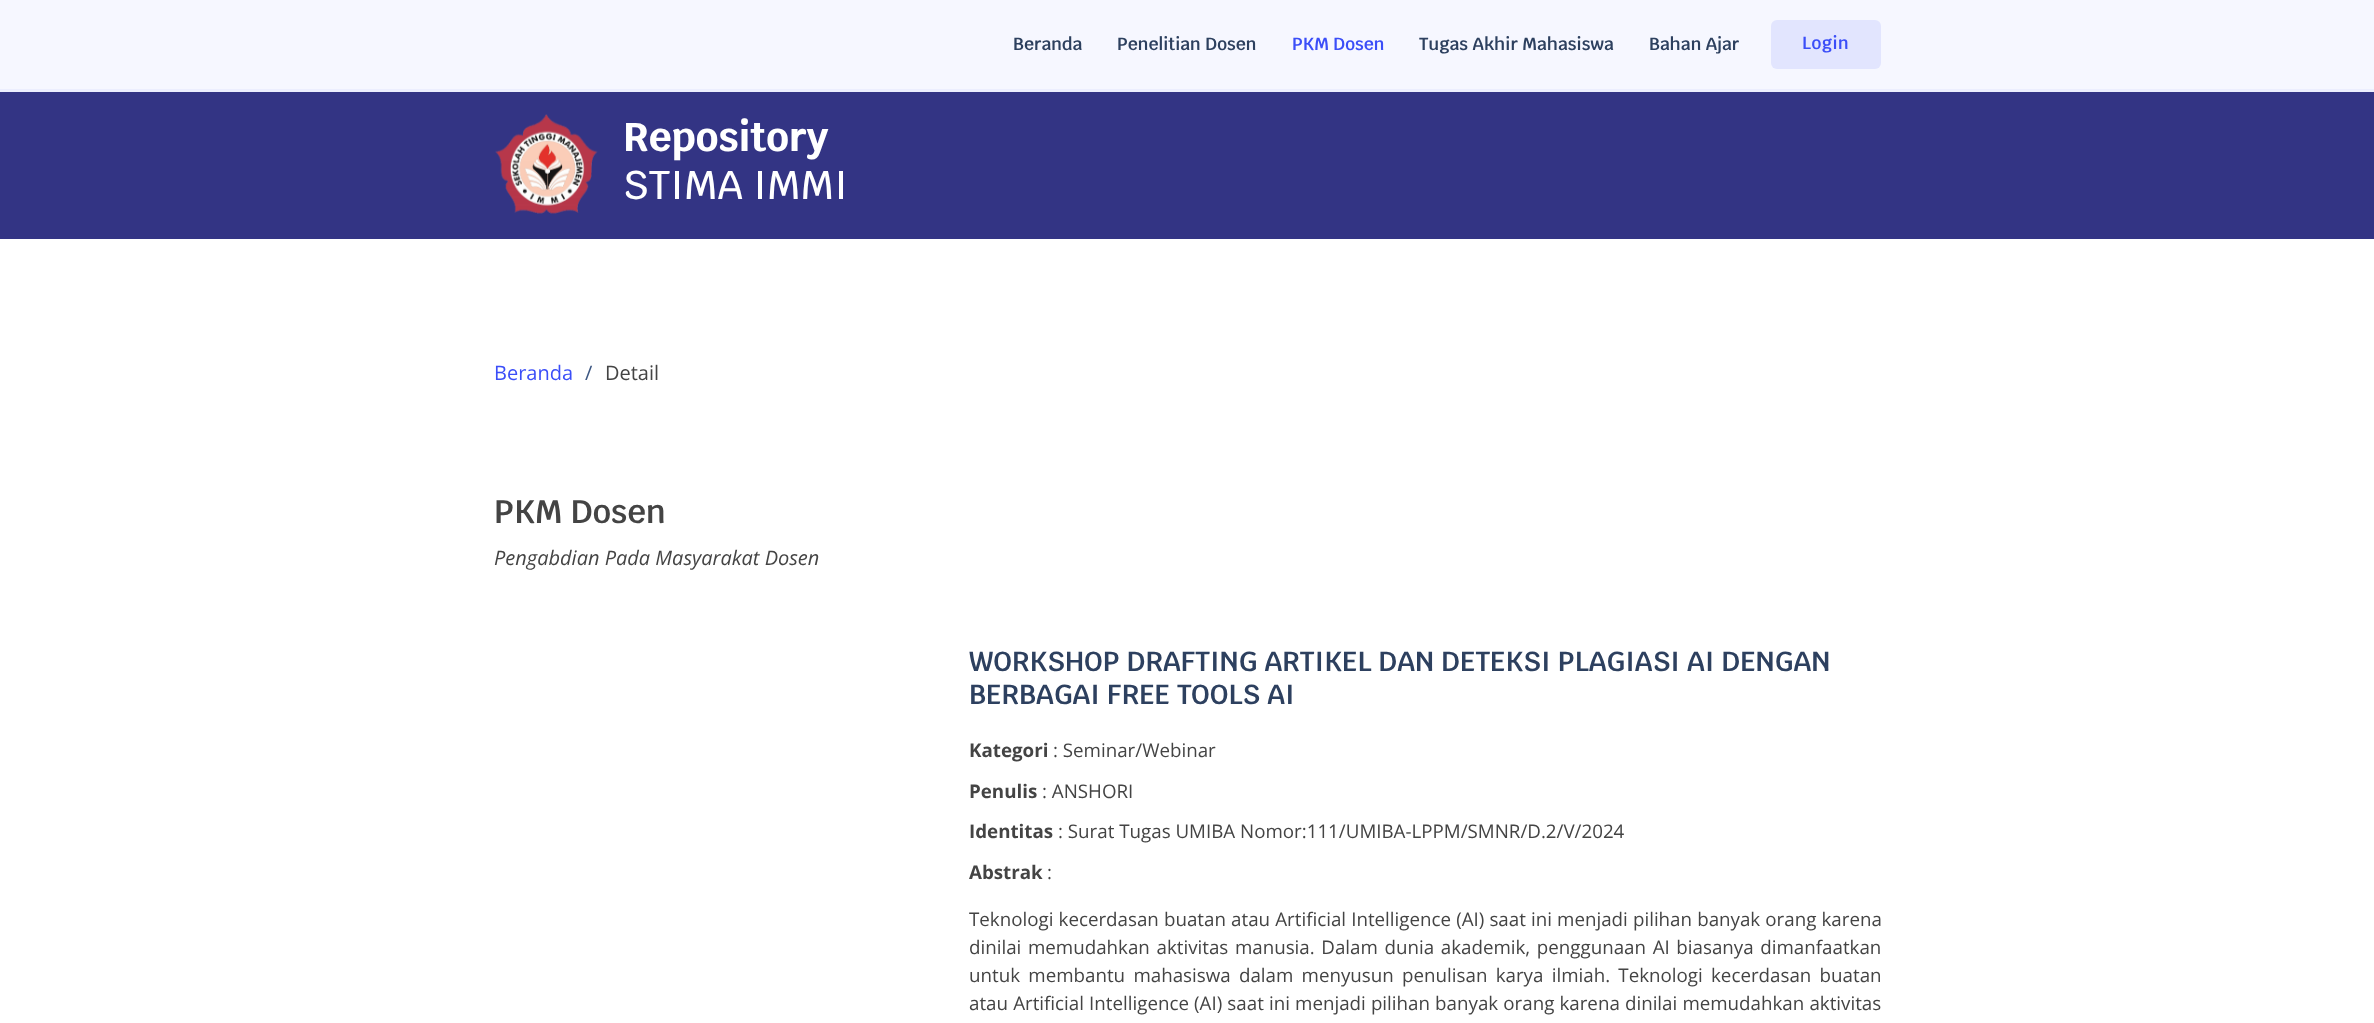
<svg xmlns="http://www.w3.org/2000/svg" width="2374" height="1023" viewBox="0 0 2374 1023">
  <rect width="100%" height="100%" fill="#fff"/>
  <path d="M0 0h2374v89H0z" fill="#f6f7ff"/>
  <path d="M0 89h2374v3H0z" fill="#eceefe"/>
  <rect x="1771" y="20" width="110" height="49" rx="6" fill="#e2e5fe"/>
  <path d="M0 92h2374v147H0z" fill="#333484"/>
  <image x="495" y="114" width="103" height="100" href="img/1.png"/>
  <g font-family="Krub" font-size="17.5" font-weight="600" fill="#2d405f">
    <text x="1013" y="50">Beranda</text>
    <text x="1117" y="50">Penelitian Dosen</text>
  </g>
  <text x="1292" y="50" font-family="Krub" font-size="17.5" font-weight="600" fill="#3b4ef8">PKM Dosen</text>
  <g font-family="Krub" font-size="17.5" font-weight="600" fill="#2d405f">
    <text x="1419" y="50">Tugas Akhir Mahasiswa</text>
    <text x="1649" y="50">Bahan Ajar</text>
  </g>
  <text x="1802" y="49" font-family="Krub" font-size="17.5" font-weight="600" letter-spacing="0.5" fill="#3b4ef8">Login</text>
  <text x="623" y="151" font-family="Krub" font-size="40" font-weight="bold" fill="#fff">Repository</text>
  <text x="623" y="199" font-family="Krub" font-size="40" font-weight="500" fill="#fff">STIMA IMMI</text>
  <text x="494" y="380" font-family="Open Sans" font-size="20" fill="#3b4ef8">Beranda</text>
  <text x="585" y="380" font-family="Open Sans" font-size="20" fill="#3d5782">/</text>
  <text x="605" y="380" font-family="Open Sans" font-size="20" fill="#444">Detail</text>
  <text x="494" y="523" font-family="Krub" font-size="32.5" font-weight="600" fill="#444">PKM Dosen</text>
  <text x="494" y="565" font-family="Open Sans" font-size="20" font-style="italic" fill="#444">Pengabdian Pada Masyarakat Dosen</text>
  <g font-family="Krub" font-size="27.5" font-weight="600" fill="#2d405f">
    <text x="969" y="671">WORKSHOP DRAFTING ARTIKEL DAN DETEKSI PLAGIASI AI DENGAN</text>
    <text x="969" y="704">BERBAGAI FREE TOOLS AI</text>
  </g>
  <text x="969" y="757" font-family="Open Sans" font-size="18.75" font-weight="bold" fill="#444">Kategori</text>
  <text x="1053" y="757" font-family="Open Sans" font-size="18.75" fill="#444">: Seminar/Webinar</text>
  <text x="969" y="798" font-family="Open Sans" font-size="18.75" font-weight="bold" fill="#444">Penulis</text>
  <text x="1042" y="798" font-family="Open Sans" font-size="18.75" fill="#444">: ANSHORI</text>
  <text x="969" y="838" font-family="Open Sans" font-size="18.75" font-weight="bold" fill="#444">Identitas</text>
  <text x="1058" y="838" font-family="Open Sans" font-size="18.75" fill="#444">: Surat Tugas UMIBA Nomor:111/UMIBA-LPPM/SMNR/D.2/V/2024</text>
  <text x="969" y="879" font-family="Open Sans" font-size="18.75" font-weight="bold" fill="#444">Abstrak</text>
  <g font-family="Open Sans" font-size="18.75" fill="#444">
    <text x="1047" y="879">:</text>
    <text x="969" y="926" word-spacing="0.25">Teknologi kecerdasan buatan atau Artificial Intelligence (AI) saat ini menjadi pilihan banyak orang karena</text>
    <text x="969" y="954" word-spacing="1.75">dinilai memudahkan aktivitas manusia. Dalam dunia akademik, penggunaan AI biasanya dimanfaatkan</text>
    <text x="969" y="982" word-spacing="3.4">untuk membantu mahasiswa dalam menyusun penulisan karya ilmiah. Teknologi kecerdasan buatan</text>
    <text x="969" y="1010" word-spacing="0.25">atau Artificial Intelligence (AI) saat ini menjadi pilihan banyak orang karena dinilai memudahkan aktivitas</text>
  </g>
</svg>
